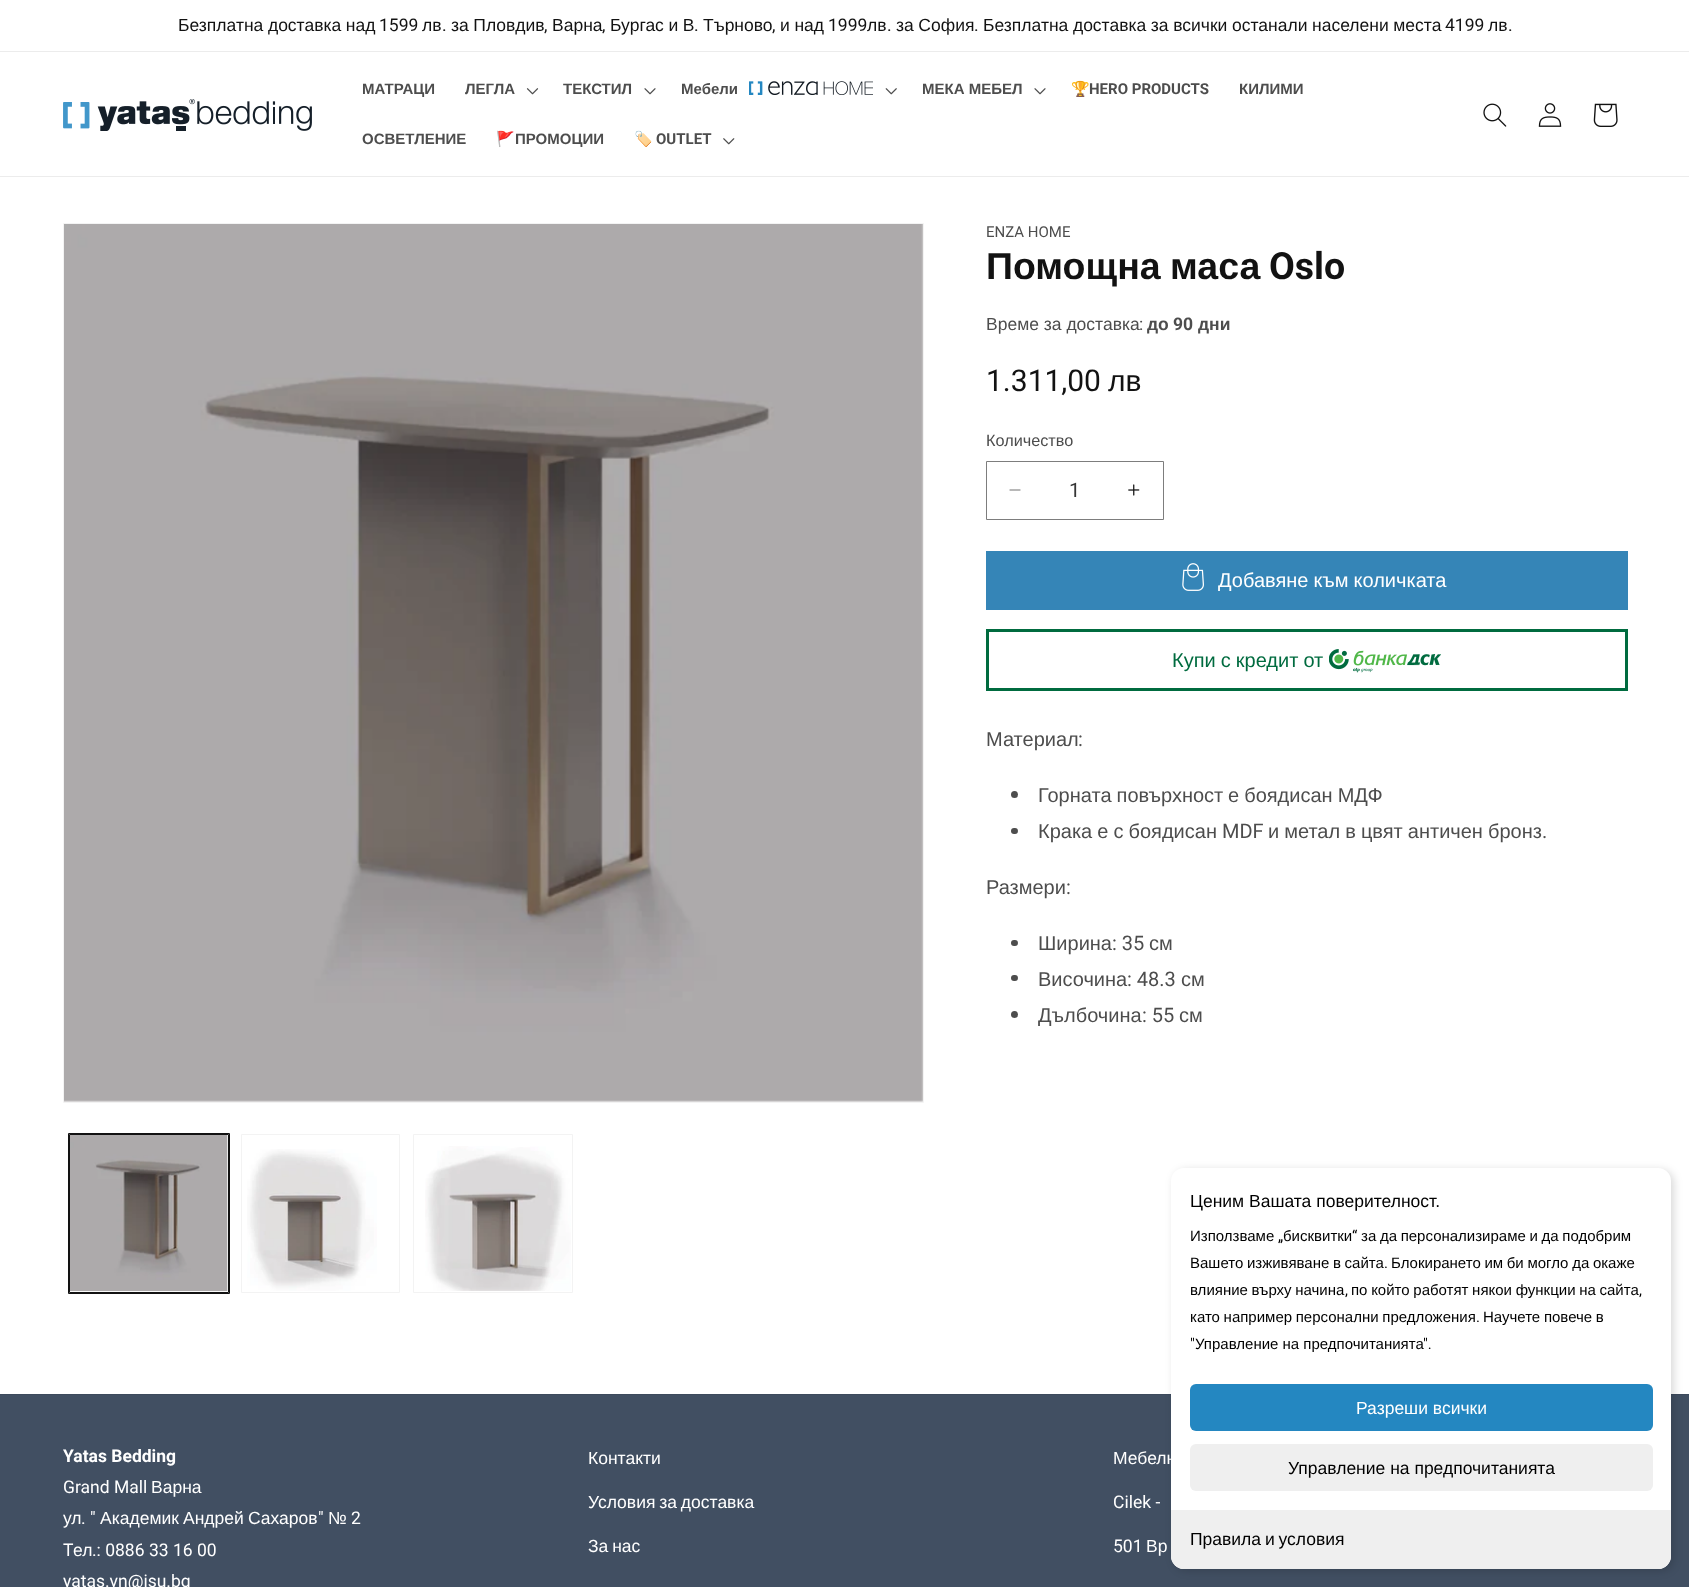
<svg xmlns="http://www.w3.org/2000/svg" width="1689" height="1587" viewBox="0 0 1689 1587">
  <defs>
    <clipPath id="clip1"><rect x="1171" y="1168" width="500" height="401" rx="13"/></clipPath>
  </defs>
  <rect width="100%" height="100%" fill="#fff"/>
  <path d="M0 51h1689v1H0z" fill="#ececec"/>
  <path d="M0 176h1689v1H0z" fill="#ececec"/>
  <image x="63" y="99" width="249" height="32" href="img/1.png"/>
  <image x="526" y="88" width="13" height="7" href="img/2.png"/>
  <image x="644" y="88" width="12" height="7" href="img/3.png"/>
  <image x="749" y="81" width="124" height="14" href="img/4.png"/>
  <image x="885" y="88" width="12" height="7" href="img/5.png"/>
  <image x="1034" y="88" width="12" height="7" href="img/3.png"/>
  <image x="723" y="138" width="12" height="7" href="img/6.png"/>
  <image x="1483" y="103" width="24" height="24" href="img/7.png"/>
  <image x="1538" y="103" width="24" height="24" href="img/8.png"/>
  <image x="1593" y="103" width="25" height="24" href="img/9.png"/>
  <path d="M63.5 223.5h860v879H63.5z" fill="none" stroke="#f3f3f3"/>
  <image x="64" y="224" width="859" height="878" href="img/10.png"/>
  <path d="M68.5 1133.5h161v160H68.5z" fill="none" stroke="#121212"/>
  <path d="M69.5 1134.5h159v158H69.5z" fill="none" stroke="#121212"/>
  <image x="70" y="1135" width="158" height="157" href="img/11.png"/>
  <path d="M241.5 1134.5h158v158H241.5z" fill="none" stroke="#f3f3f3"/>
  <image x="247" y="1149" width="130" height="142" href="img/12.png"/>
  <path d="M413.5 1134.5h159v158H413.5z" fill="none" stroke="#f3f3f3"/>
  <image x="425" y="1146" width="146" height="145" href="img/13.png"/>
  <image x="1009" y="489" width="12" height="2" href="img/14.png"/>
  <image x="1128" y="484" width="12" height="12" href="img/15.png"/>
  <path d="M986.5 461.5h177v58H986.5z" fill="none" stroke="#7d7d7d"/>
  <path d="M986 551h642v59H986z" fill="#3585b7"/>
  <image x="1182" y="563" width="22" height="28" href="img/16.png"/>
  <path d="M987.5 630.5h639v59H987.5z" fill="none" stroke="#006b3f" stroke-width="3"/>
  <image x="1329" y="649" width="112" height="24" href="img/17.png"/>
  <circle cx="1014.5" cy="794.5" r="3.5" fill="#4d4d4d"/>
  <rect x="1011" y="828" width="7" height="6" rx="3" fill="#4d4d4d"/>
  <rect x="1011" y="940" width="7" height="6" rx="3" fill="#4d4d4d"/>
  <rect x="1011" y="975" width="7" height="6" rx="3" fill="#4d4d4d"/>
  <circle cx="1014.5" cy="1014.5" r="3.5" fill="#4d4d4d"/>
  <path d="M0 1395h1689v192H0z" fill="#414f62"/>
  <path d="M0 1394h1689v1H0z" fill="#3d4a5c"/>
  <rect x="1174" y="1170" width="500" height="401" rx="13" fill="#00000026" filter="blur(4px)"/>
  <rect x="1171" y="1168" width="500" height="401" rx="13" fill="#fff"/>
  <rect x="1190" y="1384" width="463" height="47" rx="6" fill="#2487c1"/>
  <rect x="1190" y="1444" width="463" height="47" rx="6" fill="#efefef"/>
  <path d="M1171 1510H1671V1556C1671 1563 1665 1569 1658 1569H1184C1177 1569 1171 1563 1171 1556Z" fill="#efefef"/>
  <g clip-path="url(#clip1)">
    <path d="M1171 1568h500v1H1171z" fill="#eee"/>
  </g>
  <text x="178" y="31" word-spacing="-0.25" font-family="Liberation Sans" font-size="17.5" fill="#121212">Безплатна доставка над</text>
  <text x="379" y="31" font-family="Roboto" font-size="17.5" fill="#121212">1599</text>
  <text x="422" y="31" font-family="Liberation Sans" font-size="17.5" fill="#121212">лв</text>
  <text x="442" y="31" font-family="Roboto" font-size="17.5" fill="#121212">.</text>
  <text x="451" y="31" word-spacing="-0.25" font-family="Liberation Sans" font-size="17.5" fill="#121212">за Пловдив</text>
  <text x="544" y="31" font-family="Roboto" font-size="17.5" fill="#121212">,</text>
  <text x="552" y="31" font-family="Liberation Sans" font-size="17.5" fill="#121212">Варна</text>
  <text x="602" y="31" font-family="Roboto" font-size="17.5" fill="#121212">,</text>
  <text x="610" y="31" word-spacing="-0.25" font-family="Liberation Sans" font-size="17.5" fill="#121212">Бургас и В</text>
  <text x="694" y="31" font-family="Roboto" font-size="17.5" fill="#121212">.</text>
  <text x="703" y="31" font-family="Liberation Sans" font-size="17.5" fill="#121212">Търново</text>
  <text x="772" y="31" font-family="Roboto" font-size="17.5" fill="#121212">,</text>
  <text x="780" y="31" word-spacing="-0.25" font-family="Liberation Sans" font-size="17.5" fill="#121212">и над</text>
  <text x="828" y="31" font-family="Roboto" font-size="17.5" fill="#121212">1999</text>
  <text x="867" y="31" font-family="Liberation Sans" font-size="17.5" fill="#121212">лв</text>
  <text x="887" y="31" font-family="Roboto" font-size="17.5" fill="#121212">.</text>
  <text x="896" y="31" word-spacing="-0.25" font-family="Liberation Sans" font-size="17.5" fill="#121212">за София</text>
  <text x="974" y="31" font-family="Roboto" font-size="17.5" fill="#121212">.</text>
  <text x="983" y="31" word-spacing="-0.25" font-family="Liberation Sans" font-size="17.5" fill="#121212">Безплатна доставка за всички останали населени места</text>
  <text x="1445" y="31" font-family="Roboto" font-size="17.5" fill="#121212">4199</text>
  <text x="1488" y="31" font-family="Liberation Sans" font-size="17.5" fill="#121212">лв</text>
  <text x="1508" y="31" font-family="Roboto" font-size="17.5" fill="#121212">.</text>
  <g font-family="Liberation Sans" font-size="15" font-weight="bold" fill="#4d4d4d">
    <text x="362" y="94">МАТРАЦИ</text>
    <text x="465" y="94">ЛЕГЛА</text>
    <text x="563" y="94">ТЕКСТИЛ</text>
    <text x="681" y="94">Мебели</text>
    <text x="922" y="94">МЕКА МЕБЕЛ</text>
  </g>
  <text x="1071" y="94" font-family="Noto Color Emoji" font-size="15" font-weight="bold" fill="#4d4d4d">🏆</text>
  <text x="1089" y="94" font-family="Roboto" font-size="15" font-weight="bold" fill="#4d4d4d">HERO PRODUCTS</text>
  <g font-family="Liberation Sans" font-size="15" font-weight="bold" fill="#4d4d4d">
    <text x="1239" y="94">КИЛИМИ</text>
    <text x="362" y="144">ОСВЕТЛЕНИЕ</text>
  </g>
  <text x="496" y="144" font-family="Noto Color Emoji" font-size="15" font-weight="bold" fill="#4d4d4d">🚩</text>
  <text x="515" y="144" font-family="Liberation Sans" font-size="15" font-weight="bold" fill="#4d4d4d">ПРОМОЦИИ</text>
  <text x="634" y="144" font-family="Noto Color Emoji" font-size="15" font-weight="bold" fill="#4d4d4d">🏷️</text>
  <text x="656" y="144" font-family="Roboto" font-size="15" font-weight="bold" fill="#4d4d4d">OUTLET</text>
  <text x="986" y="237" font-family="Roboto" font-size="15" fill="#4d4d4d">ENZA HOME</text>
  <text x="986" y="279" word-spacing="-1" font-family="Liberation Sans" font-size="37.5" font-weight="bold" fill="#121212">Помощна маса</text>
  <text x="1269" y="279" font-family="Roboto" font-size="37.5" font-weight="bold" fill="#121212">Oslo</text>
  <text x="986" y="330" font-family="Liberation Sans" font-size="17.5" fill="#4d4d4d">Време за доставка</text>
  <text x="1139" y="330" font-family="Roboto" font-size="17.5" fill="#4d4d4d">:</text>
  <text x="1147" y="330" font-family="Liberation Sans" font-size="17.5" font-weight="bold" fill="#4d4d4d">до</text>
  <text x="1173" y="330" font-family="Roboto" font-size="17.5" font-weight="bold" fill="#4d4d4d">90</text>
  <text x="1198" y="330" font-family="Liberation Sans" font-size="17.5" font-weight="bold" fill="#4d4d4d">дни</text>
  <text x="986" y="391" font-family="Roboto" font-size="30" fill="#121212">1.311,00</text>
  <text x="1108" y="391" font-family="Liberation Sans" font-size="30" fill="#121212">лв</text>
  <text x="986" y="446" font-family="Liberation Sans" font-size="16.25" fill="#4d4d4d">Количество</text>
  <text x="1069" y="497" font-family="Roboto" font-size="20" fill="#363636">1</text>
  <text x="1218" y="587" word-spacing="-0.5" font-family="Liberation Sans" font-size="20" fill="#fff">Добавяне към количката</text>
  <text x="1172" y="667" word-spacing="-0.5" font-family="Liberation Sans" font-size="20" fill="#006b3f">Купи с кредит от</text>
  <text x="986" y="746" font-family="Liberation Sans" font-size="20" fill="#4d4d4d">Материал</text>
  <text x="1078" y="746" font-family="Roboto" font-size="20" fill="#4d4d4d">:</text>
  <g font-family="Liberation Sans" font-size="20" fill="#4d4d4d">
    <text x="1038" y="802" word-spacing="-0.5">Горната повърхност</text>
    <text x="1228" y="802" word-spacing="-0.5">е боядисан МДФ</text>
    <text x="1038" y="838" word-spacing="-0.5">Крака е с боядисан</text>
  </g>
  <text x="1222" y="838" font-family="Roboto" font-size="20" fill="#4d4d4d">MDF</text>
  <text x="1268" y="838" word-spacing="-0.5" font-family="Liberation Sans" font-size="20" fill="#4d4d4d">и метал в цвят античен бронз</text>
  <text x="1542" y="838" font-family="Roboto" font-size="20" fill="#4d4d4d">.</text>
  <text x="986" y="894" font-family="Liberation Sans" font-size="20" fill="#4d4d4d">Размери</text>
  <text x="1066" y="894" font-family="Roboto" font-size="20" fill="#4d4d4d">:</text>
  <text x="1038" y="950" font-family="Liberation Sans" font-size="20" fill="#4d4d4d">Ширина</text>
  <text x="1112" y="950" font-family="Roboto" font-size="20" fill="#4d4d4d">: 35</text>
  <g font-family="Liberation Sans" font-size="20" fill="#4d4d4d">
    <text x="1149" y="950">см</text>
    <text x="1038" y="986">Височина</text>
  </g>
  <text x="1127" y="986" font-family="Roboto" font-size="20" fill="#4d4d4d">: 48.3</text>
  <g font-family="Liberation Sans" font-size="20" fill="#4d4d4d">
    <text x="1181" y="986">см</text>
    <text x="1038" y="1022">Дълбочина</text>
  </g>
  <text x="1142" y="1022" font-family="Roboto" font-size="20" fill="#4d4d4d">: 55</text>
  <text x="1179" y="1022" font-family="Liberation Sans" font-size="20" fill="#4d4d4d">см</text>
  <text x="63" y="1462" font-family="Roboto" font-size="17.5" font-weight="bold" fill="#fff">Yatas Bedding</text>
  <text x="63" y="1493" font-family="Roboto" font-size="17.5" fill="#fff">Grand Mall</text>
  <g font-family="Liberation Sans" font-size="17.5" fill="#fff">
    <text x="151" y="1493">Варна</text>
    <text x="63" y="1524">ул</text>
  </g>
  <text x="81" y="1524" font-family="Roboto" font-size="17.5" fill="#fff">. "</text>
  <g font-family="Liberation Sans" font-size="17.5" fill="#fff">
    <text x="100" y="1524">Академик</text>
    <text x="183" y="1524">Андрей</text>
    <text x="248" y="1524">Сахаров</text>
  </g>
  <text x="318" y="1524" font-family="Roboto" font-size="17.5" fill="#fff">"</text>
  <text x="328" y="1524" font-family="Liberation Sans" font-size="17.5" fill="#fff">№</text>
  <g font-family="Roboto" font-size="17.5" fill="#fff">
    <text x="351" y="1524">2</text>
    <text x="63" y="1556">T</text>
  </g>
  <text x="73" y="1556" font-family="Liberation Sans" font-size="17.5" fill="#fff">ел</text>
  <g font-family="Roboto" font-size="17.5" fill="#fff">
    <text x="92" y="1556">.: 0886 33 16 00</text>
    <text x="63" y="1587">yatas.vn@isu.bg</text>
  </g>
  <g font-family="Liberation Sans" font-size="17.5" fill="#fff">
    <text x="588" y="1464">Контакти</text>
    <text x="588" y="1508" word-spacing="-1">Условия за доставка</text>
    <text x="588" y="1552" word-spacing="-1">За нас</text>
    <text x="1113" y="1464">Мебелн</text>
  </g>
  <g font-family="Roboto" font-size="17.5" fill="#fff">
    <text x="1113" y="1508">Cilek -</text>
    <text x="1113" y="1552">501</text>
  </g>
  <text x="1146" y="1552" font-family="Liberation Sans" font-size="17.5" fill="#fff">Вр</text>
  <text x="1190" y="1207" font-family="Liberation Sans" font-size="17.5" fill="#000">Ценим Вашата поверителност.</text>
  <text x="1190" y="1241" font-family="Liberation Sans" font-size="15" fill="#000">Използваме</text>
  <text x="1278" y="1241" font-family="Roboto" font-size="15" fill="#000">„</text>
  <text x="1283" y="1241" font-family="Liberation Sans" font-size="15" fill="#000">бисквитки</text>
  <text x="1352" y="1241" font-family="Roboto" font-size="15" fill="#000">“</text>
  <g font-family="Liberation Sans" font-size="15" fill="#000">
    <text x="1361" y="1241" word-spacing="-0.5">за да персонализираме и да подобрим</text>
    <text x="1190" y="1268" word-spacing="-0.5">Вашето изживяване в сайта</text>
  </g>
  <text x="1384" y="1268" font-family="Roboto" font-size="15" fill="#000">.</text>
  <g font-family="Liberation Sans" font-size="15" fill="#000">
    <text x="1391" y="1268" word-spacing="-0.5">Блокирането им би могло да окаже</text>
    <text x="1190" y="1295" word-spacing="-0.5">влияние върху начина</text>
  </g>
  <text x="1345" y="1295" font-family="Roboto" font-size="15" fill="#000">,</text>
  <text x="1351" y="1295" word-spacing="-0.5" font-family="Liberation Sans" font-size="15" fill="#000">по който работят някои функции на сайта</text>
  <text x="1639" y="1295" font-family="Roboto" font-size="15" fill="#000">,</text>
  <text x="1190" y="1322" word-spacing="-0.5" font-family="Liberation Sans" font-size="15" fill="#000">като например персонални предложения</text>
  <text x="1476" y="1322" font-family="Roboto" font-size="15" fill="#000">.</text>
  <text x="1483" y="1322" word-spacing="-0.5" font-family="Liberation Sans" font-size="15" fill="#000">Научете повече в</text>
  <text x="1190" y="1349" font-family="Roboto" font-size="15" fill="#000">"</text>
  <text x="1195" y="1349" font-family="Liberation Sans" font-size="15" fill="#000">Управление на предпочитанията</text>
  <text x="1423" y="1349" font-family="Roboto" font-size="15" fill="#000">".</text>
  <text x="1356" y="1414" font-family="Liberation Sans" font-size="17.5" fill="#fff">Разреши всички</text>
  <g font-family="Liberation Sans" font-size="17.5" fill="#000">
    <text x="1288" y="1474">Управление на предпочитанията</text>
    <text x="1190" y="1545" word-spacing="-1">Правила и условия</text>
  </g>
</svg>
